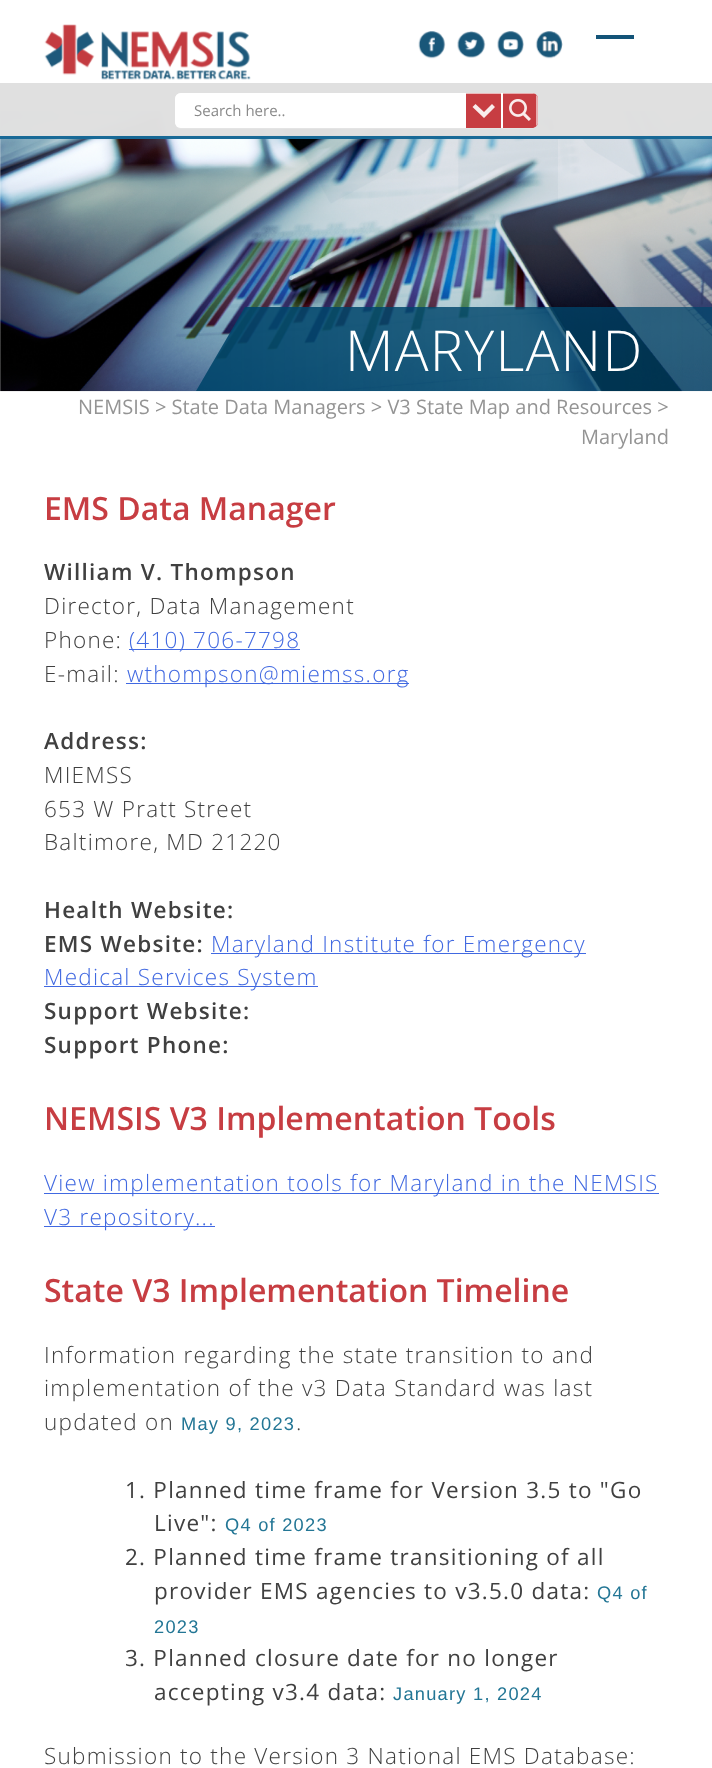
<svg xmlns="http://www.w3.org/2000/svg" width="712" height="1768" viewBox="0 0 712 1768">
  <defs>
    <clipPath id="clip1"><path d="M503 93h35v35H503z"/></clipPath>
  </defs>
  <rect width="100%" height="100%" fill="#fff"/>
  <path d="M596 35h38v4H596z" fill="#135478"/>
  <image x="0" y="110" width="712" height="282" href="img/7.png"/>
  <path d="M0 110h712v29H0z" fill="#ffffffe6"/>
  <path d="M0 136h712v3H0z" fill="#005a8ce6"/>
  <image x="44" y="24" width="207" height="56" href="img/1.png"/>
  <image x="418" y="31" width="28" height="28" href="img/2.png"/>
  <image x="457" y="31" width="29" height="27" href="img/3.png"/>
  <image x="497" y="31" width="27" height="28" href="img/4.png"/>
  <image x="535" y="31" width="28" height="28" href="img/5.png"/>
  <path d="M0 83h712v53H0z" fill="#dddddde6"/>
  <path d="M59 135h633v1H59z" fill="#dddddde6"/>
  <path d="M175 121V123C175 126 178 129 181 129H532C535 129 538 126 538 123V100L537 97L538 121C538 125 535 128 531 128H181C178 128 175 125 175 121Z" fill="#e4e4e4e6"/>
  <rect x="175" y="93" width="363" height="35" rx="6" fill="#ffffffe6"/>
  <rect x="175" y="93" width="363" height="35" rx="6" fill="#ffffffe6"/>
  <path d="M466 94h35v34H466z" fill="#c73d42"/>
  <path d="M466 93h35v1H466z" fill="#ebb9bb"/>
  <path d="M492 104L495 107L484 118L472.5 107L475.5 104L484 112Z" fill="#f9ecec"/>
  <path d="M503 93H532C535.5 93 538 95.5 538 99V122C538 125.5 535.5 128 532 128H503Z" fill="#c73d42"/>
  <g clip-path="url(#clip1)">
    <path d="M501 94V128H379V93H532C533 93 534 93 535 94ZM536 126C540 123 538 115 538 110C538 106 540 98 536 95Z" fill="#ffffff94" fill-rule="evenodd"/>
  </g>
  <image x="509" y="99" width="22" height="22" href="img/6.png"/>
  <path d="M129 649h171v1H129z" fill="#4169e1"/>
  <path d="M126 683h283v1H126z" fill="#4169e1"/>
  <path d="M211 953h375v1H211z" fill="#4169e1"/>
  <path d="M44 986h274v1H44z" fill="#4169e1"/>
  <path d="M44 1193h615v1H44z" fill="#4169e1"/>
  <path d="M44 1226h171v1H44z" fill="#4169e1"/>
  <text x="194" y="116" font-family="Open Sans" font-size="15" fill="#8a8a8a">Search here..</text>
  <text x="345" y="371" font-family="Open Sans" font-size="56.25" font-weight="300" letter-spacing="1.25" fill="#fff">MARYLAND</text>
  <g font-family="Open Sans" font-size="20" fill="#949494">
    <text x="78" y="414">NEMSIS &gt; State Data Managers &gt; V3 State Map and Resources &gt;</text>
    <text x="581" y="444">Maryland</text>
  </g>
  <text x="44" y="520" font-family="Open Sans" font-size="32" font-weight="600" fill="#c73d42">EMS Data Manager</text>
  <text x="44" y="580" font-family="Open Sans" font-size="22.5" font-weight="600" letter-spacing="1.25" fill="#404040">William V. Thompson</text>
  <g font-family="Open Sans" font-size="22.5" font-weight="300" letter-spacing="1.25" fill="#404040">
    <text x="44" y="614">Director, Data Management</text>
    <text x="44" y="648">Phone:</text>
  </g>
  <text x="129" y="648" font-family="Open Sans" font-size="22.5" font-weight="300" letter-spacing="1.25" fill="#4169e1">(410) 706-7798</text>
  <text x="44" y="682" font-family="Open Sans" font-size="22.5" font-weight="300" letter-spacing="1.25" fill="#404040">E-mail:</text>
  <text x="127" y="682" font-family="Open Sans" font-size="22.5" font-weight="300" letter-spacing="1.25" fill="#4169e1">wthompson@miemss.org</text>
  <text x="44" y="749" font-family="Open Sans" font-size="22.5" font-weight="600" letter-spacing="1.25" fill="#404040">Address:</text>
  <g font-family="Open Sans" font-size="22.5" font-weight="300" letter-spacing="1.25" fill="#404040">
    <text x="44" y="783">MIEMSS</text>
    <text x="44" y="817">653 W Pratt Street</text>
    <text x="44" y="850">Baltimore, MD 21220</text>
  </g>
  <g font-family="Open Sans" font-size="22.5" font-weight="600" letter-spacing="1.25" fill="#404040">
    <text x="44" y="918">Health Website:</text>
    <text x="44" y="952">EMS Website:</text>
  </g>
  <g font-family="Open Sans" font-size="22.5" font-weight="300" letter-spacing="1.25" fill="#4169e1">
    <text x="211" y="952">Maryland Institute for Emergency</text>
    <text x="44" y="985">Medical Services System</text>
  </g>
  <g font-family="Open Sans" font-size="22.5" font-weight="600" letter-spacing="1.25" fill="#404040">
    <text x="44" y="1019">Support Website:</text>
    <text x="44" y="1053">Support Phone:</text>
  </g>
  <text x="44" y="1130" font-family="Open Sans" font-size="32" font-weight="600" fill="#c73d42">NEMSIS V3 Implementation Tools</text>
  <g font-family="Open Sans" font-size="22.5" font-weight="300" letter-spacing="1.25" fill="#4169e1">
    <text x="44" y="1191">View implementation tools for Maryland in the NEMSIS</text>
    <text x="44" y="1225">V3 repository...</text>
  </g>
  <text x="44" y="1302" font-family="Open Sans" font-size="32" font-weight="600" fill="#c73d42">State V3 Implementation Timeline</text>
  <g font-family="Open Sans" font-size="22.5" font-weight="300" letter-spacing="1.25" fill="#404040">
    <text x="44" y="1363">Information regarding the state transition to and</text>
    <text x="44" y="1396">implementation of the v3 Data Standard was last</text>
    <text x="44" y="1430">updated on</text>
  </g>
  <text x="181" y="1430" font-family="Liberation Sans" font-size="18.25" letter-spacing="1.25" fill="#237695">May 9, 2023</text>
  <text x="296" y="1430" font-family="Open Sans" font-size="22.5" font-weight="300" letter-spacing="1.25" fill="#404040">.</text>
  <g font-family="Open Sans" font-size="22.5" letter-spacing="1.25" fill="#404040">
    <text x="125" y="1498">1. Planned time frame for Version 3.5 to "Go</text>
    <text x="154" y="1531">Live":</text>
  </g>
  <text x="225" y="1531" font-family="Liberation Sans" font-size="18.25" letter-spacing="1.25" fill="#237695">Q4 of 2023</text>
  <g font-family="Open Sans" font-size="22.5" letter-spacing="1.25" fill="#404040">
    <text x="125" y="1565">2. Planned time frame transitioning of all</text>
    <text x="154" y="1599">provider EMS agencies to v3.5.0 data:</text>
  </g>
  <g font-family="Liberation Sans" font-size="18.25" letter-spacing="1.25" fill="#237695">
    <text x="597" y="1599">Q4 of</text>
    <text x="154" y="1633">2023</text>
  </g>
  <g font-family="Open Sans" font-size="22.5" letter-spacing="1.25" fill="#404040">
    <text x="125" y="1666">3. Planned closure date for no longer</text>
    <text x="154" y="1700">accepting v3.4 data:</text>
  </g>
  <text x="393" y="1700" font-family="Liberation Sans" font-size="18.25" letter-spacing="1.25" fill="#237695">January 1, 2024</text>
  <text x="44" y="1764" font-family="Open Sans" font-size="22.5" font-weight="300" letter-spacing="1.25" fill="#404040">Submission to the Version 3 National EMS Database:</text>
</svg>
